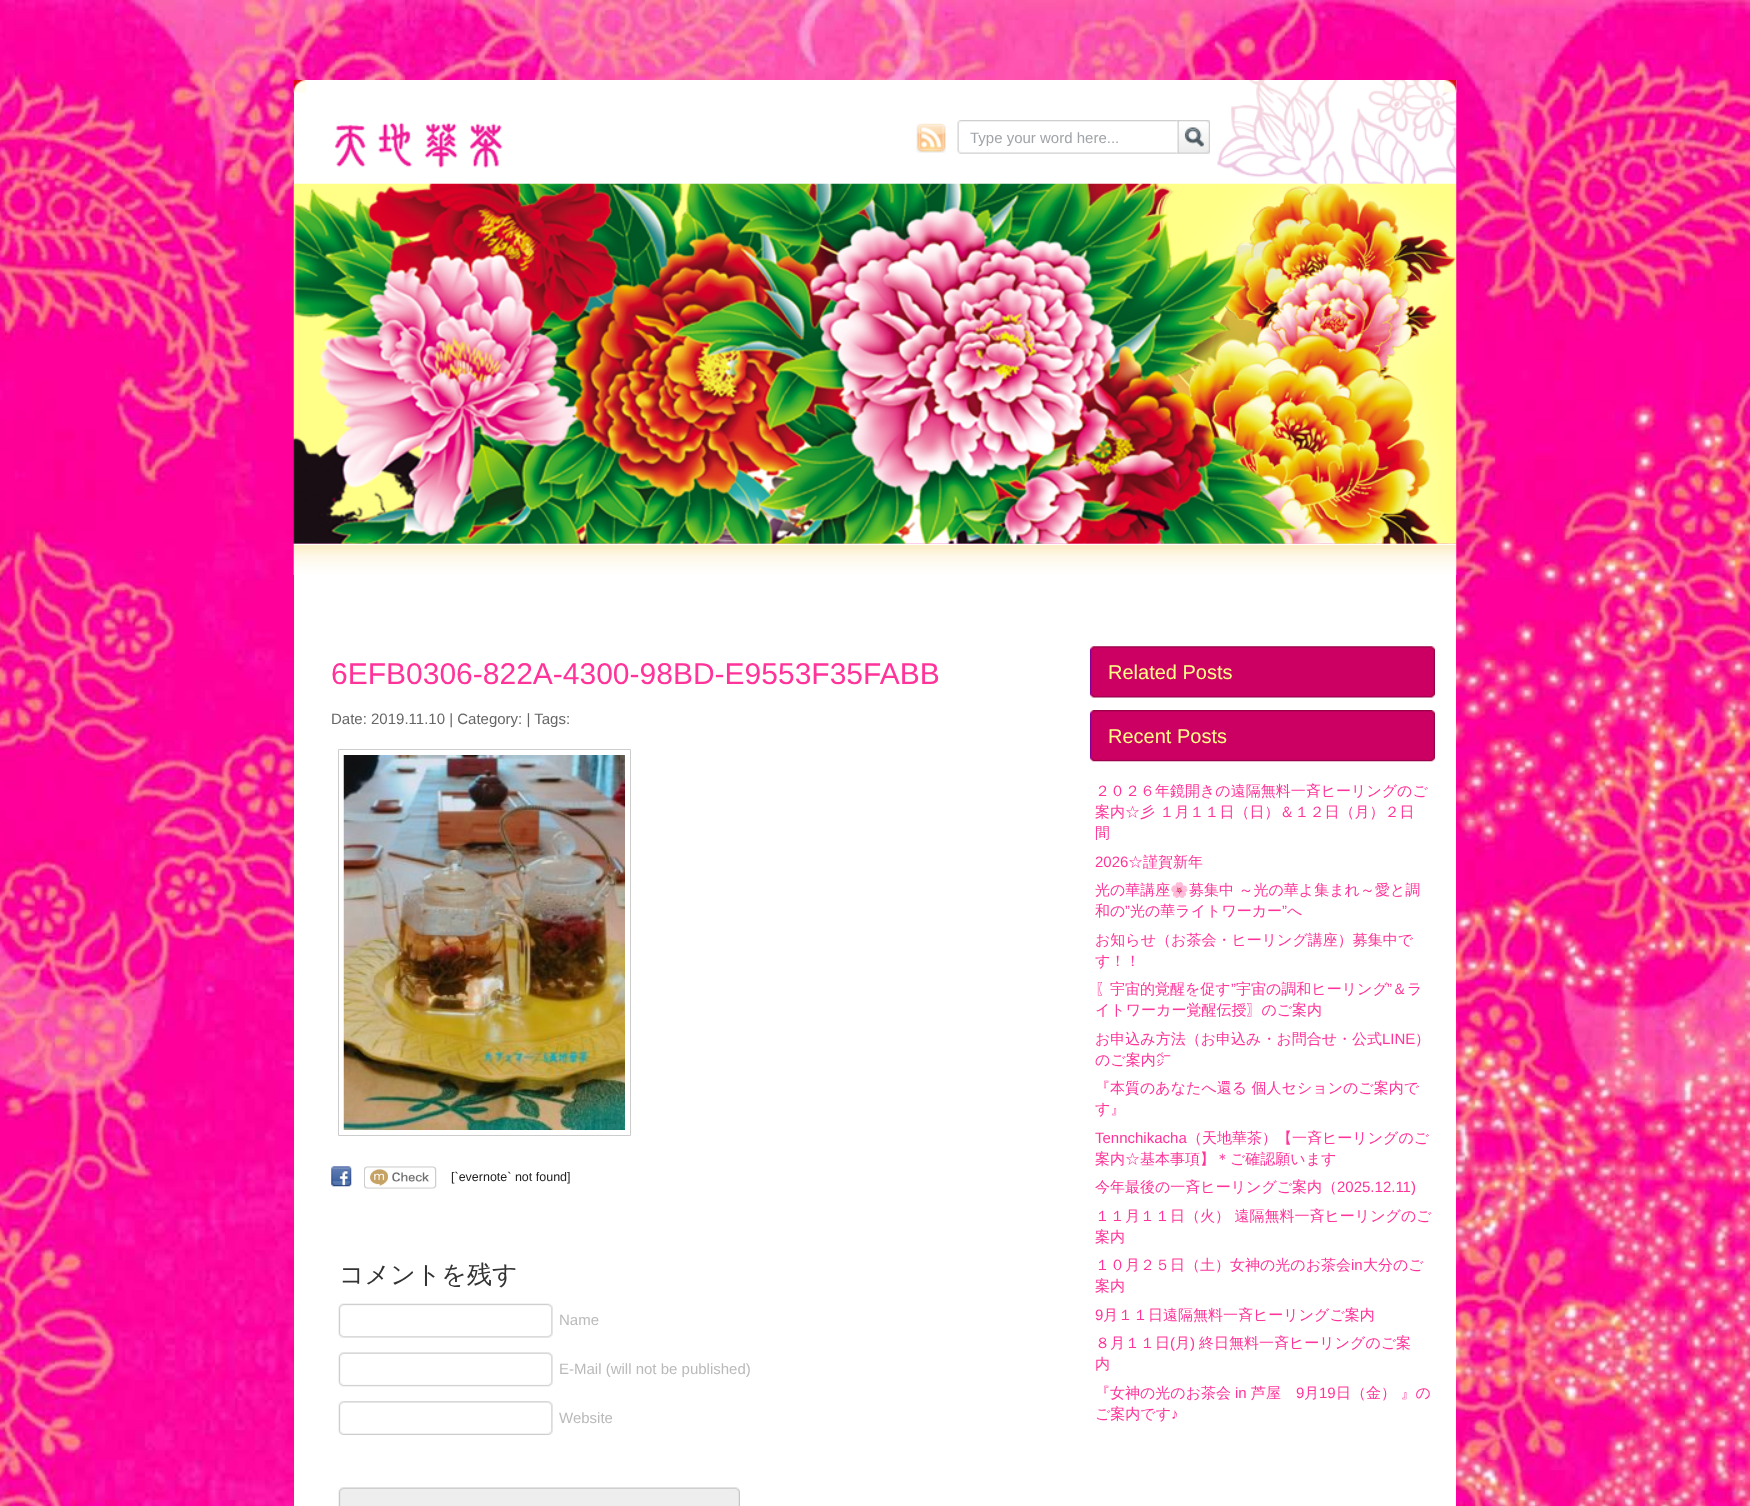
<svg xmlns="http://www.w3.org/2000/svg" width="1750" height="1506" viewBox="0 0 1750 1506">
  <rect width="100%" height="100%" fill="#fff"/>
  <image x="0" y="0" width="1750" height="1506" href="img/1.png"/>
  <path d="M294 80h1162v104H294z" fill="#fff"/>
  <image x="1217" y="80" width="240" height="104" href="img/2.png"/>
  <image x="293" y="80" width="14" height="13" href="img/3.png"/>
  <image x="1443" y="80" width="14" height="13" href="img/4.png"/>
  <image x="916" y="123" width="30" height="30" href="img/5.png"/>
  <image x="334" y="122" width="169" height="46" href="img/6.png"/>
  <image x="957" y="120" width="220" height="34" href="img/7.png"/>
  <image x="1176" y="120" width="34" height="34" href="img/8.png"/>
  <image x="293" y="183" width="1164" height="361" href="img/9.png"/>
  <path d="M294 575h1162v931H294z" fill="#fff"/>
  <image x="293" y="543" width="1164" height="32" href="img/10.png"/>
  <path d="M338.5 749.5h292v386H338.5z" fill="none" stroke="#ccc"/>
  <image x="343" y="755" width="282" height="375" href="img/11.png"/>
  <image x="331" y="1166" width="21" height="21" href="img/12.png"/>
  <image x="364" y="1166" width="73" height="23" href="img/13.png"/>
  <image x="338" y="1303" width="215" height="35" href="img/14.png"/>
  <image x="338" y="1352" width="215" height="35" href="img/15.png"/>
  <image x="338" y="1401" width="215" height="34" href="img/16.png"/>
  <image x="338" y="1487" width="402" height="19" href="img/17.png"/>
  <image x="1090" y="646" width="345" height="52" href="img/18.png"/>
  <image x="1090" y="710" width="345" height="52" href="img/19.png"/>
  <text x="970" y="143" font-family="Liberation Sans" font-size="15" fill="#a0a4a8">Type your word here...</text>
  <text x="331" y="684" font-family="Liberation Sans" font-size="30" fill="#f39">6EFB0306-822A-4300-98BD-E9553F35FABB</text>
  <text x="331" y="724" font-family="Liberation Sans" font-size="15" fill="#666">Date: 2019.11.10 | Category: | Tags:</text>
  <text x="451" y="1181" font-family="Liberation Sans" font-size="12.5" fill="#222">[`evernote` not found]</text>
  <text x="339" y="1283" font-family="WenQuanYi Zen Hei" font-size="25" font-weight="500" fill="#333">コメントを残す</text>
  <g font-family="Liberation Sans" font-size="15" fill="#bababa">
    <text x="559" y="1325">Name</text>
    <text x="559" y="1374">E-Mail (will not be published)</text>
    <text x="559" y="1423">Website</text>
  </g>
  <g font-family="Liberation Sans" font-size="20" fill="#ff8">
    <text x="1108" y="679">Related Posts</text>
    <text x="1108" y="743">Recent Posts</text>
  </g>
  <g font-family="WenQuanYi Zen Hei" font-size="15" font-weight="500" fill="#f39">
    <text x="1095" y="796">２０２６年鏡開きの遠隔無料一斉ヒーリングのご</text>
    <text x="1095" y="817">案内☆彡 １月１１日（日）＆１２日（月）２日</text>
    <text x="1095" y="838">間</text>
  </g>
  <text x="1095" y="867" font-family="Liberation Sans" font-size="15" fill="#f39">2026</text>
  <g font-family="WenQuanYi Zen Hei" font-size="15" font-weight="500" fill="#f39">
    <text x="1128" y="867">☆謹賀新年</text>
    <text x="1095" y="895">光の華講座</text>
  </g>
  <text x="1170" y="895" font-family="Noto Color Emoji" font-size="15" fill="#f39">🌸</text>
  <g font-family="WenQuanYi Zen Hei" font-size="15" font-weight="500" fill="#f39">
    <text x="1189" y="895">募集中 ～光の華よ集まれ～愛と調</text>
    <text x="1095" y="916">和の</text>
  </g>
  <text x="1125" y="916" font-family="Liberation Sans" font-size="15" fill="#f39">”</text>
  <text x="1130" y="916" font-family="WenQuanYi Zen Hei" font-size="15" font-weight="500" fill="#f39">光の華ライトワーカー</text>
  <text x="1282" y="916" font-family="Liberation Sans" font-size="15" fill="#f39">”</text>
  <g font-family="WenQuanYi Zen Hei" font-size="15" font-weight="500" fill="#f39">
    <text x="1287" y="916">へ</text>
    <text x="1095" y="945">お知らせ（お茶会・ヒーリング講座）募集中で</text>
    <text x="1095" y="966">す！！</text>
    <text x="1095" y="994">〖宇宙的覚醒を促す</text>
  </g>
  <text x="1231" y="994" font-family="Liberation Sans" font-size="15" fill="#f39">”</text>
  <text x="1236" y="994" font-family="WenQuanYi Zen Hei" font-size="15" font-weight="500" fill="#f39">宇宙の調和ヒーリング</text>
  <text x="1387" y="994" font-family="Liberation Sans" font-size="15" fill="#f39">”</text>
  <g font-family="WenQuanYi Zen Hei" font-size="15" font-weight="500" fill="#f39">
    <text x="1392" y="994">＆ラ</text>
    <text x="1095" y="1015">イトワーカー覚醒伝授〗のご案内</text>
    <text x="1095" y="1044">お申込み方法（お申込み・お問合せ・公式</text>
  </g>
  <text x="1382" y="1044" font-family="Liberation Sans" font-size="15" fill="#f39">LINE</text>
  <g font-family="WenQuanYi Zen Hei" font-size="15" font-weight="500" fill="#f39">
    <text x="1415" y="1044">）</text>
    <text x="1095" y="1065">のご案内</text>
  </g>
  <text x="1156" y="1065" font-family="IPAPGothic" font-size="15" fill="#f39">㌻</text>
  <g font-family="WenQuanYi Zen Hei" font-size="15" font-weight="500" fill="#f39">
    <text x="1095" y="1093">『本質のあなたへ還る 個人セションのご案内で</text>
    <text x="1095" y="1114">す』</text>
  </g>
  <text x="1095" y="1143" font-family="Liberation Sans" font-size="15" fill="#f39">Tennchikacha</text>
  <g font-family="WenQuanYi Zen Hei" font-size="15" font-weight="500" fill="#f39">
    <text x="1187" y="1143">（天地華茶）【一斉ヒーリングのご</text>
    <text x="1095" y="1164">案内☆基本事項】＊ご確認願います</text>
    <text x="1095" y="1192">今年最後の一斉ヒーリングご案内（</text>
  </g>
  <text x="1337" y="1192" font-family="Liberation Sans" font-size="15" fill="#f39">2025.12.11)</text>
  <g font-family="WenQuanYi Zen Hei" font-size="15" font-weight="500" fill="#f39">
    <text x="1095" y="1221">１１月１１日（火） 遠隔無料一斉ヒーリングのご</text>
    <text x="1095" y="1242">案内</text>
    <text x="1095" y="1270">１０月２５日（土）女神の光のお茶会</text>
  </g>
  <text x="1351" y="1270" font-family="Liberation Sans" font-size="15" fill="#f39">in</text>
  <g font-family="WenQuanYi Zen Hei" font-size="15" font-weight="500" fill="#f39">
    <text x="1363" y="1270">大分のご</text>
    <text x="1095" y="1291">案内</text>
  </g>
  <text x="1095" y="1320" font-family="Liberation Sans" font-size="15" fill="#f39">9</text>
  <g font-family="WenQuanYi Zen Hei" font-size="15" font-weight="500" fill="#f39">
    <text x="1103" y="1320">月１１日遠隔無料一斉ヒーリングご案内</text>
    <text x="1095" y="1348">８月１１日</text>
  </g>
  <text x="1170" y="1348" font-family="Liberation Sans" font-size="15" fill="#f39">(</text>
  <text x="1175" y="1348" font-family="WenQuanYi Zen Hei" font-size="15" font-weight="500" fill="#f39">月</text>
  <text x="1190" y="1348" font-family="Liberation Sans" font-size="15" fill="#f39">)</text>
  <g font-family="WenQuanYi Zen Hei" font-size="15" font-weight="500" fill="#f39">
    <text x="1199" y="1348">終日無料一斉ヒーリングのご案</text>
    <text x="1095" y="1369">内</text>
    <text x="1095" y="1398">『女神の光のお茶会</text>
  </g>
  <text x="1235" y="1398" font-family="Liberation Sans" font-size="15" fill="#f39">in</text>
  <text x="1251" y="1398" font-family="WenQuanYi Zen Hei" font-size="15" font-weight="500" fill="#f39">芦屋</text>
  <text x="1296" y="1398" font-family="Liberation Sans" font-size="15" fill="#f39">9</text>
  <text x="1304" y="1398" font-family="WenQuanYi Zen Hei" font-size="15" font-weight="500" fill="#f39">月</text>
  <text x="1319" y="1398" font-family="Liberation Sans" font-size="15" fill="#f39">19</text>
  <g font-family="WenQuanYi Zen Hei" font-size="15" font-weight="500" fill="#f39">
    <text x="1336" y="1398">日（金） 』の</text>
    <text x="1095" y="1419">ご案内です</text>
  </g>
  <text x="1171" y="1419" font-family="Liberation Sans" font-size="15" fill="#f39">♪</text>
</svg>
